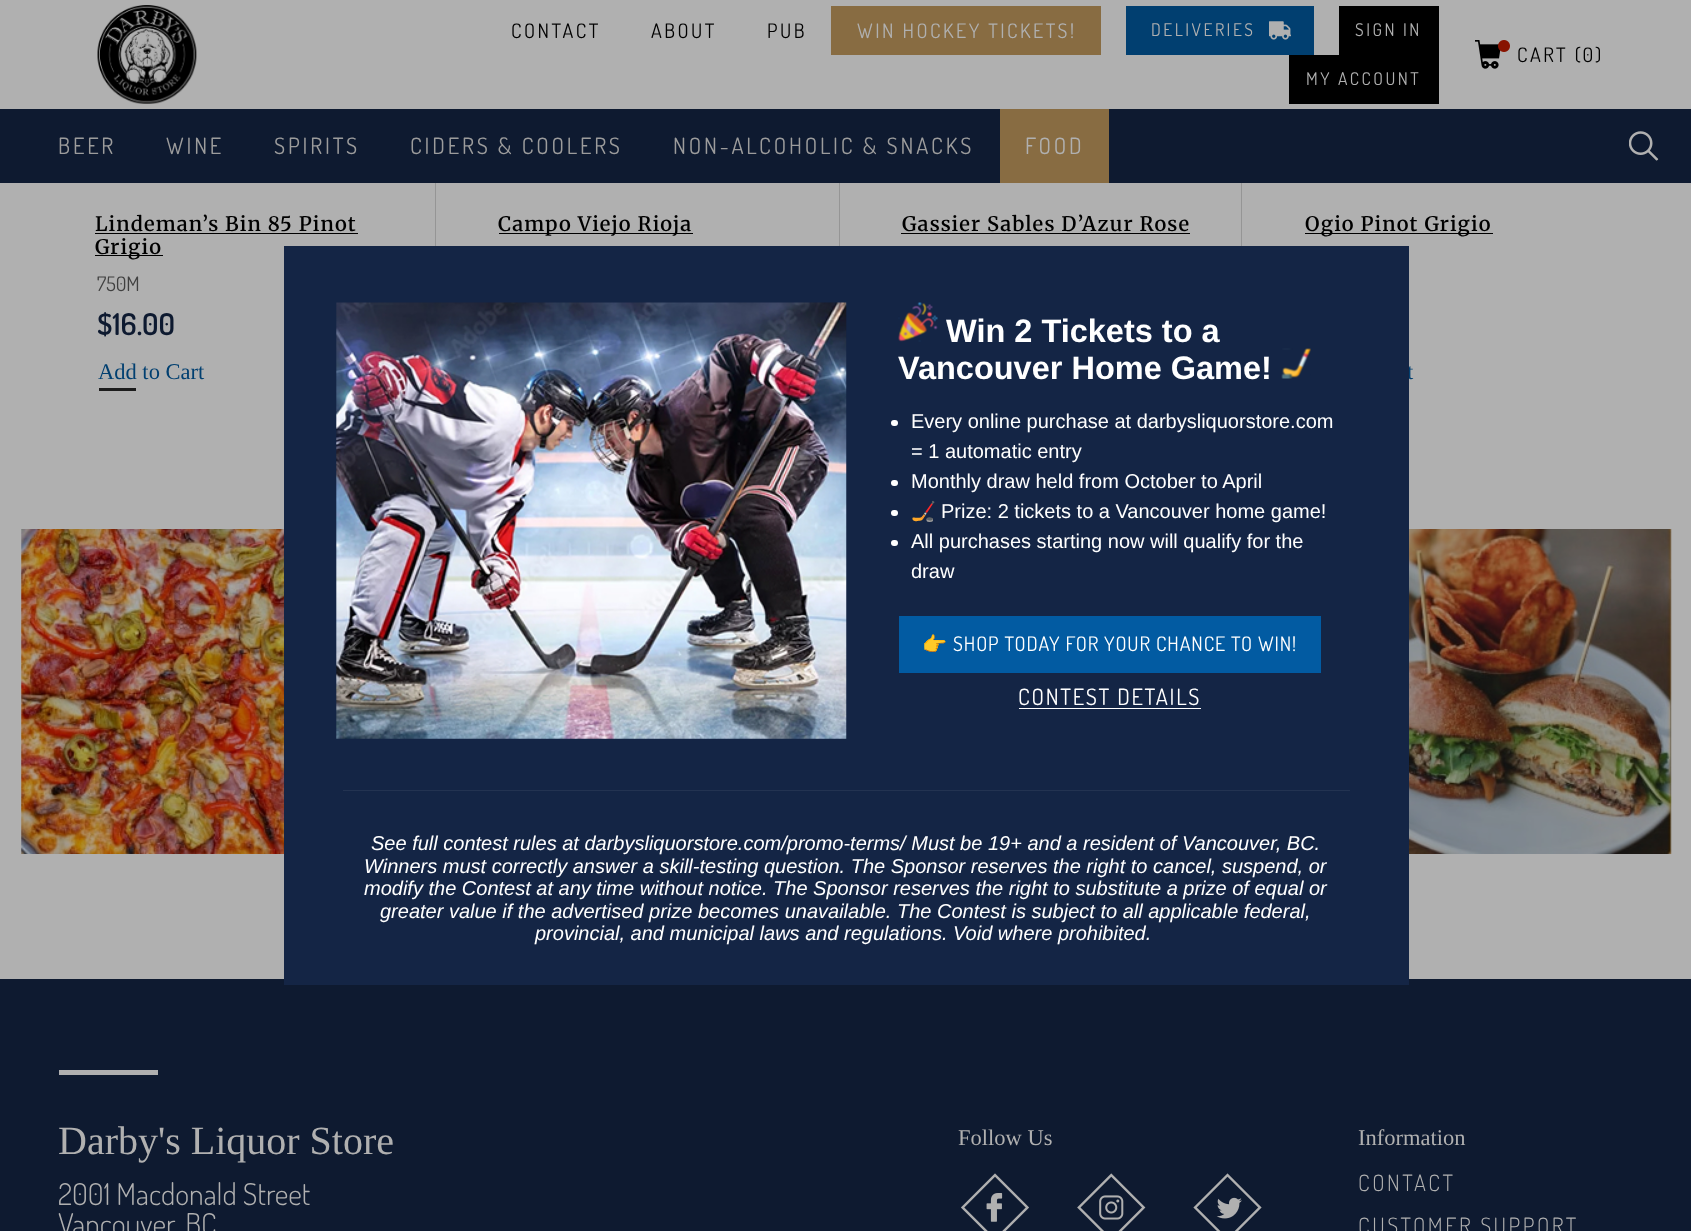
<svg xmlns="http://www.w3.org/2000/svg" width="1691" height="1231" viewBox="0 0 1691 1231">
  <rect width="100%" height="100%" fill="#b0b0b0"/>
  <image x="97" y="5" width="100" height="99" href="img/1.png"/>
  <path d="M831 6h270v49H831z" fill="#886c42"/>
  <path d="M1126 6h188v49H1126z" fill="#013f70"/>
  <image x="1269" y="21" width="22" height="19" href="img/2.png"/>
  <path d="M1339 6h100v49H1339z" fill="#000"/>
  <path d="M1289 55h150v49H1289z" fill="#000"/>
  <image x="1475" y="40" width="35" height="29" href="img/3.png"/>
  <path d="M0 109h1691v74H0z" fill="#0e1a30"/>
  <path d="M1000 109h109v74H1000z" fill="#886c42"/>
  <image x="1629" y="131" width="30" height="30" href="img/4.png"/>
  <path d="M435 183h1v63H435z" fill="#959595"/>
  <path d="M95 233h263v1H95z" fill="#000"/>
  <path d="M95 255h68v1H95z" fill="#000"/>
  <path d="M99 388h37v3H99z" fill="#1c1c1c"/>
  <path d="M839 183h1v63H839z" fill="#959595"/>
  <path d="M499 233h194v1H499z" fill="#000"/>
  <path d="M1241 183h1v63H1241z" fill="#959595"/>
  <path d="M901 233h289v1H901z" fill="#000"/>
  <path d="M1305 233h188v1H1305z" fill="#000"/>
  <image x="21" y="529" width="1651" height="325" href="img/5.png"/>
  <path d="M0 979h1691v252H0z" fill="#0e1a30"/>
  <path d="M59 1070h99v5H59z" fill="#b0b0b0"/>
  <image x="961" y="1173" width="68" height="58" href="img/9.png"/>
  <image x="1077" y="1173" width="69" height="58" href="img/10.png"/>
  <image x="1193" y="1173" width="69" height="58" href="img/11.png"/>
  <g font-family="Dosis" font-size="20" letter-spacing="2.5" fill="#000">
    <text x="511" y="38">CONTACT</text>
    <text x="651" y="38">ABOUT</text>
    <text x="767" y="38">PUB</text>
  </g>
  <text x="857" y="38" font-family="Dosis" font-size="20" letter-spacing="2.5" fill="#b0b0b0">WIN HOCKEY TICKETS!</text>
  <g font-family="Dosis" font-size="17.5" letter-spacing="2.5" fill="#b0b0b0">
    <text x="1151" y="36">DELIVERIES</text>
    <text x="1355" y="36">SIGN IN</text>
    <text x="1306" y="85">MY ACCOUNT</text>
  </g>
  <text x="1517" y="62" font-family="Dosis" font-size="20" letter-spacing="2.5" fill="#000">CART (0)</text>
  <g font-family="Dosis" font-size="22.5" letter-spacing="2.8" fill="#9c9c9c">
    <text x="58" y="154">BEER</text>
    <text x="166" y="154">WINE</text>
    <text x="274" y="154">SPIRITS</text>
    <text x="410" y="154">CIDERS &amp; COOLERS</text>
    <text x="673" y="154">NON-ALCOHOLIC &amp; SNACKS</text>
  </g>
  <text x="1025" y="154" font-family="Dosis" font-size="22.5" letter-spacing="2.8" fill="#b0b0b0">FOOD</text>
  <g font-family="Merriweather" font-size="20" font-weight="600" letter-spacing="1.1" fill="#000">
    <text x="95" y="231">Lindeman’s Bin 85 Pinot</text>
    <text x="95" y="254">Grigio</text>
  </g>
  <text x="97" y="291" font-family="Dosis" font-size="20" fill="#404040">750M</text>
  <text x="97" y="335" font-family="Dosis" font-size="30" font-weight="600" fill="#0e1a30">$16.00</text>
  <text x="98" y="379" font-family="Liberation Serif" font-size="22.5" fill="#013f70">Add to Cart</text>
  <g font-family="Merriweather" font-size="20" font-weight="600" letter-spacing="1.1" fill="#000">
    <text x="498" y="231">Campo Viejo Rioja</text>
    <text x="902" y="231">Gassier Sables D’Azur Rose</text>
    <text x="1305" y="231">Ogio Pinot Grigio</text>
  </g>
  <text x="1407" y="379" font-family="Liberation Serif" font-size="22.5" fill="#013f70">t</text>
  <path d="M284 246h1125v739H284z" fill="#142545"/>
  <image x="336" y="302" width="511" height="437" href="img/6.png"/>
  <image x="898" y="302" width="40" height="40" href="img/7.png"/>
  <g font-family="Liberation Sans" font-size="32.5" font-weight="bold" fill="#fff">
    <text x="946" y="342">Win 2 Tickets to a</text>
    <text x="898" y="379">Vancouver Home Game!</text>
  </g>
  <image x="1281" y="348" width="30" height="31" href="img/8.png"/>
  <rect x="891" y="420" width="7" height="6" rx="3" fill="#fff"/>
  <g font-family="Liberation Sans" font-size="20" fill="#fff">
    <text x="911" y="428">Every online purchase at darbysliquorstore.com</text>
    <text x="911" y="458">= 1 automatic entry</text>
  </g>
  <rect x="891" y="480" width="7" height="6" rx="3" fill="#fff"/>
  <text x="911" y="488" font-family="Liberation Sans" font-size="20" fill="#fff">Monthly draw held from October to April</text>
  <rect x="891" y="510" width="7" height="6" rx="3" fill="#fff"/>
  <text x="911" y="518" font-family="Noto Color Emoji" font-size="20" fill="#fff">🏒</text>
  <text x="941" y="518" font-family="Liberation Sans" font-size="20" fill="#fff">Prize: 2 tickets to a Vancouver home game!</text>
  <rect x="891" y="540" width="7" height="6" rx="3" fill="#fff"/>
  <g font-family="Liberation Sans" font-size="20" fill="#fff">
    <text x="911" y="548">All purchases starting now will qualify for the</text>
    <text x="911" y="578">draw</text>
  </g>
  <path d="M899 616h422v57H899z" fill="#025ba2"/>
  <text x="922" y="651" font-family="Noto Color Emoji" font-size="20" letter-spacing="0.9" fill="#fff">👉</text>
  <text x="953" y="651" font-family="Dosis" font-size="20" letter-spacing="0.9" fill="#fff">SHOP TODAY FOR YOUR CHANCE TO WIN!</text>
  <path d="M1019 708h182v1H1019z" fill="#fff"/>
  <text x="1018" y="705" font-family="Dosis" font-size="22.5" letter-spacing="1.7" fill="#fff">CONTEST DETAILS</text>
  <path d="M343 790h1007v1H343z" fill="#233351"/>
  <g font-family="Liberation Sans" font-size="20" font-style="italic" fill="#fff">
    <text x="371" y="850">See full contest rules at darbysliquorstore.com/promo-terms/ Must be 19+ and a resident of Vancouver, BC.</text>
    <text x="364" y="873">Winners must correctly answer a skill-testing question. The Sponsor reserves the right to cancel, suspend, or</text>
    <text x="364" y="895">modify the Contest at any time without notice. The Sponsor reserves the right to substitute a prize of equal or</text>
    <text x="380" y="918">greater value if the advertised prize becomes unavailable. The Contest is subject to all applicable federal,</text>
    <text x="535" y="940">provincial, and municipal laws and regulations. Void where prohibited.</text>
  </g>
  <text x="58" y="1154" font-family="Liberation Serif" font-size="40" fill="#b0b0b0">Darby's Liquor Store</text>
  <g font-family="Dosis" font-size="30" font-weight="300" fill="#b0b0b0">
    <text x="58" y="1205">2001 Macdonald Street</text>
    <text x="58" y="1235">Vancouver, BC</text>
  </g>
  <g font-family="Liberation Serif" font-size="22.5" fill="#b0b0b0">
    <text x="958" y="1145">Follow Us</text>
    <text x="1358" y="1145">Information</text>
  </g>
  <g font-family="Dosis" font-size="22.5" font-weight="300" letter-spacing="2.5" fill="#b0b0b0">
    <text x="1358" y="1191">CONTACT</text>
    <text x="1358" y="1234">CUSTOMER SUPPORT</text>
  </g>
</svg>
